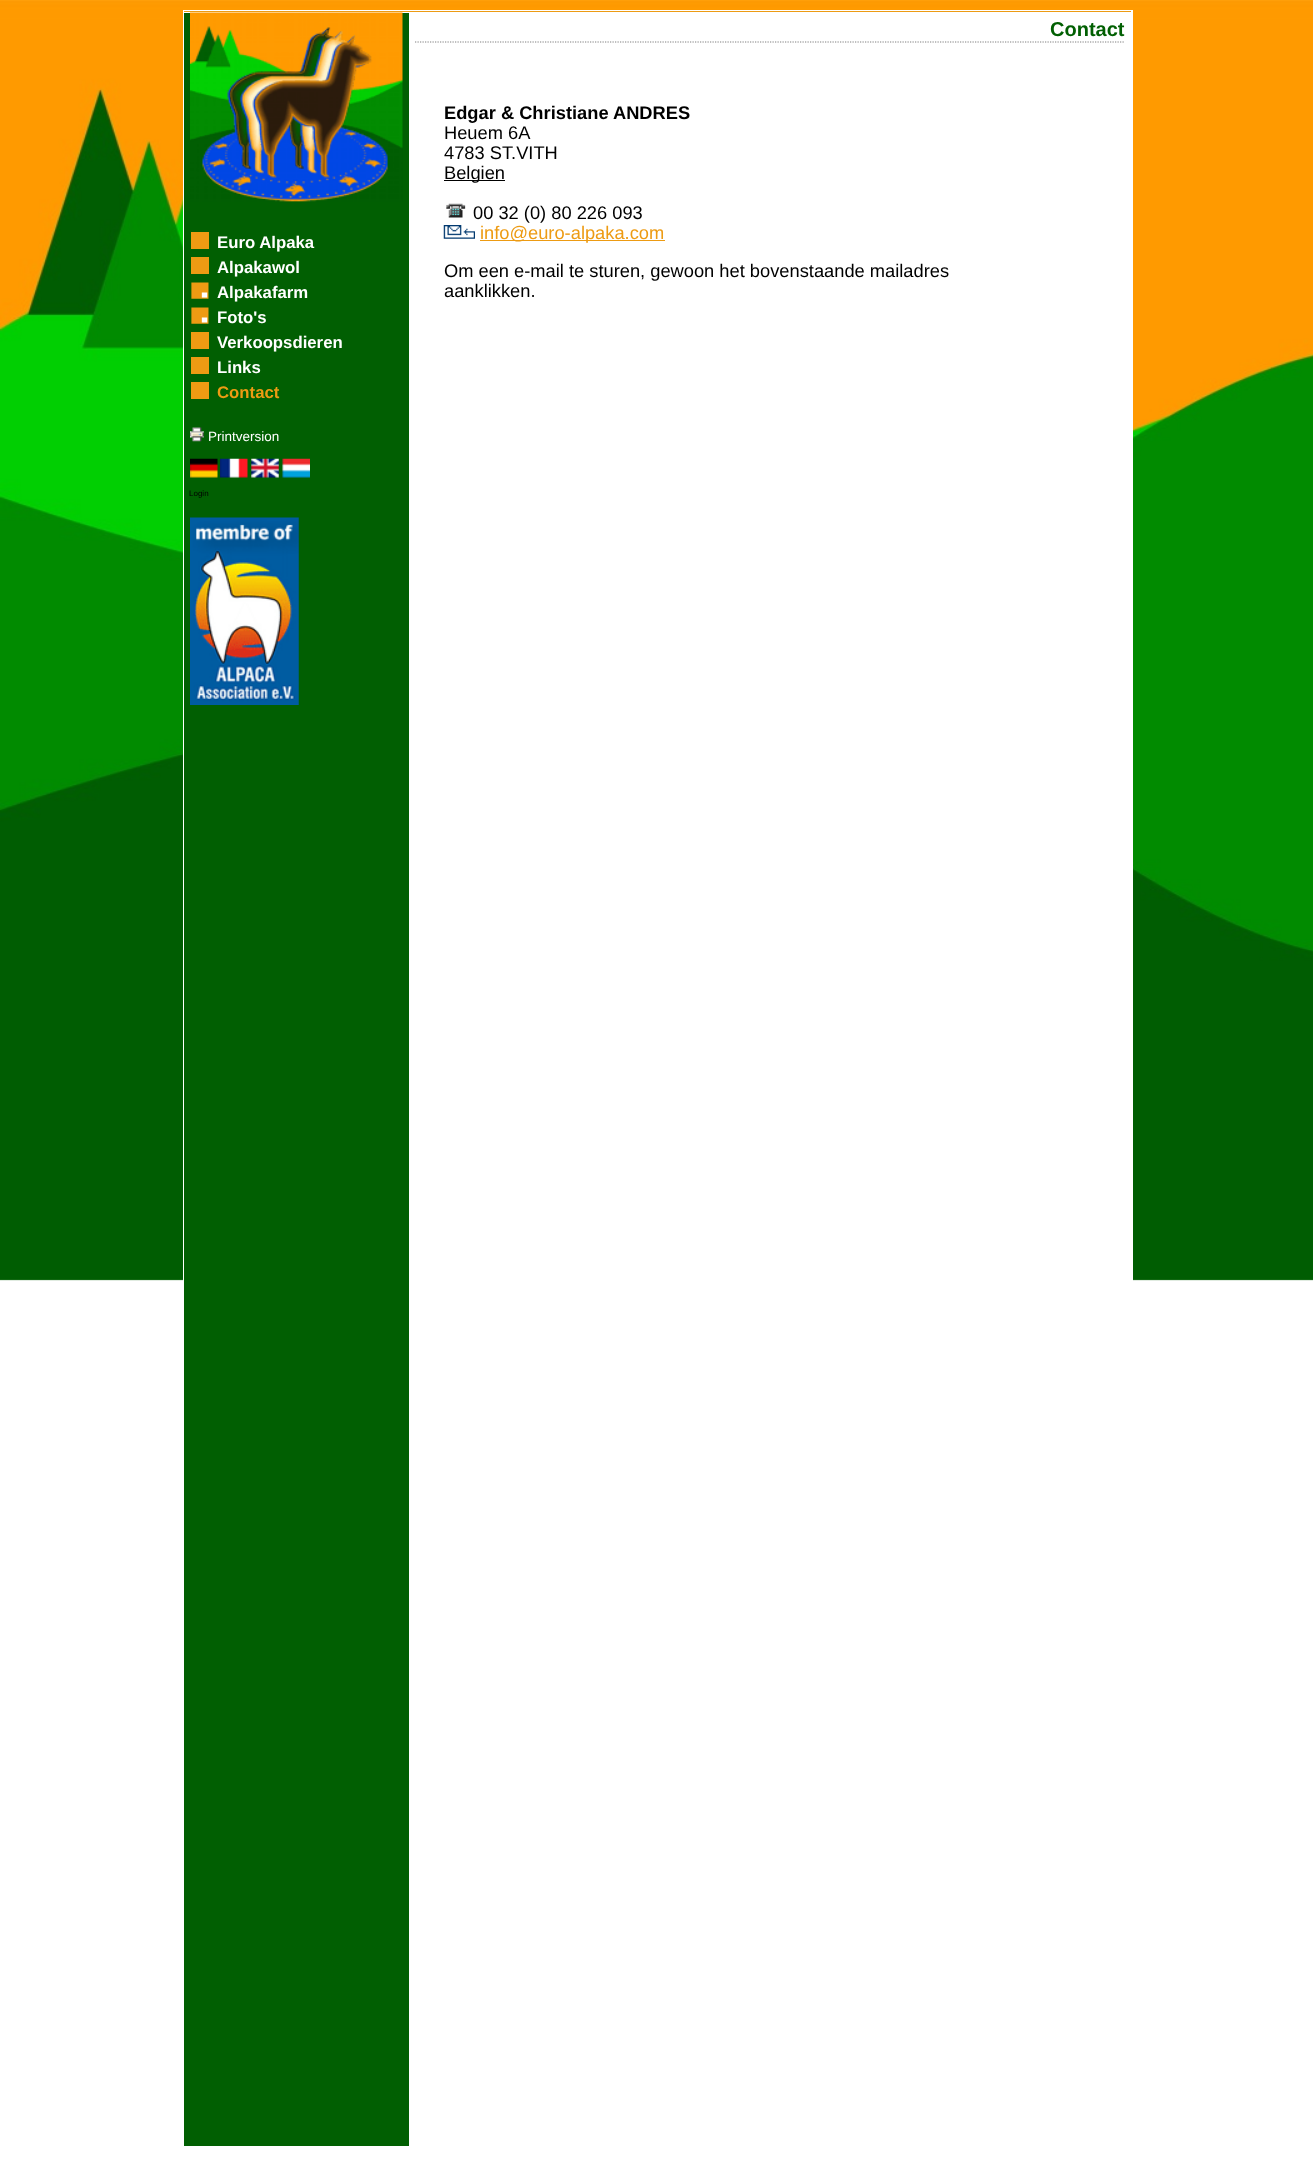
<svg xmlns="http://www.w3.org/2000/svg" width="1313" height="2157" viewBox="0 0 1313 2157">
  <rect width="100%" height="100%" fill="#fff"/>
  <image x="0" y="0" width="1313" height="1281" href="img/1.png"/>
  <path d="M183 10h950v1271H183z" fill="#fff"/>
  <path d="M184 11h947v1H184z" fill="#ed9b13"/>
  <path d="M415 42H1125" fill="none" stroke="#808080" stroke-width="1.2" stroke-dasharray="1.25 1.25"/>
  <path d="M444 180h61v1H444z" fill="#000"/>
  <image x="446" y="203" width="20" height="15" href="img/2.png"/>
  <image x="443" y="225" width="32" height="14" href="img/3.png"/>
  <path d="M480 240h185v1H480z" fill="#ed9b13"/>
  <path d="M184 13h225v2133H184z" fill="#015f02"/>
  <image x="190" y="12" width="213" height="190" href="img/4.png"/>
  <path d="M191 232h18v17H191z" fill="#ed9b13"/>
  <path d="M191 257h18v17H191z" fill="#ed9b13"/>
  <image x="191" y="282" width="18" height="17" href="img/5.png"/>
  <image x="191" y="307" width="18" height="17" href="img/6.png"/>
  <path d="M191 332h18v17H191z" fill="#ed9b13"/>
  <path d="M191 357h18v17H191z" fill="#ed9b13"/>
  <path d="M191 382h18v17H191z" fill="#ed9b13"/>
  <image x="190" y="427" width="14" height="15" href="img/7.png"/>
  <image x="190" y="458" width="28" height="20" href="img/8.png"/>
  <image x="220" y="458" width="28" height="20" href="img/9.png"/>
  <image x="251" y="458" width="28" height="20" href="img/10.png"/>
  <image x="282" y="458" width="28" height="20" href="img/11.png"/>
  <image x="190" y="517" width="109" height="188" href="img/12.png"/>
  <text x="1050" y="36" font-family="Liberation Sans" font-size="20" font-weight="bold" fill="#015f02">Contact</text>
  <text x="444" y="119" font-family="Liberation Sans" font-size="18.3" font-weight="bold" fill="#000">Edgar &amp; Christiane ANDRES</text>
  <g font-family="Liberation Sans" font-size="18.3" fill="#000">
    <text x="444" y="139">Heuem 6A</text>
    <text x="444" y="159">4783 ST.VITH</text>
    <text x="444" y="179">Belgien</text>
    <text x="473" y="219">00 32 (0) 80 226 093</text>
  </g>
  <text x="480" y="239" font-family="Liberation Sans" font-size="18.3" fill="#ed9b13">info@euro-alpaka.com</text>
  <g font-family="Liberation Sans" font-size="18.3" fill="#000">
    <text x="444" y="277">Om een e-mail te sturen, gewoon het bovenstaande mailadres</text>
    <text x="444" y="297">aanklikken.</text>
  </g>
  <g font-family="Liberation Sans" font-size="16.75" font-weight="bold" fill="#fff">
    <text x="217" y="248">Euro Alpaka</text>
    <text x="217" y="273">Alpakawol</text>
    <text x="217" y="298">Alpakafarm</text>
    <text x="217" y="323">Foto's</text>
    <text x="217" y="348">Verkoopsdieren</text>
    <text x="217" y="373">Links</text>
  </g>
  <text x="217" y="398" font-family="Liberation Sans" font-size="16.75" font-weight="bold" fill="#ed9b13">Contact</text>
  <text x="208" y="441" font-family="Liberation Sans" font-size="13.5" fill="#fff">Printversion</text>
  <text x="189" y="496" font-family="Liberation Sans" font-size="8" fill="#000">Login</text>
</svg>
